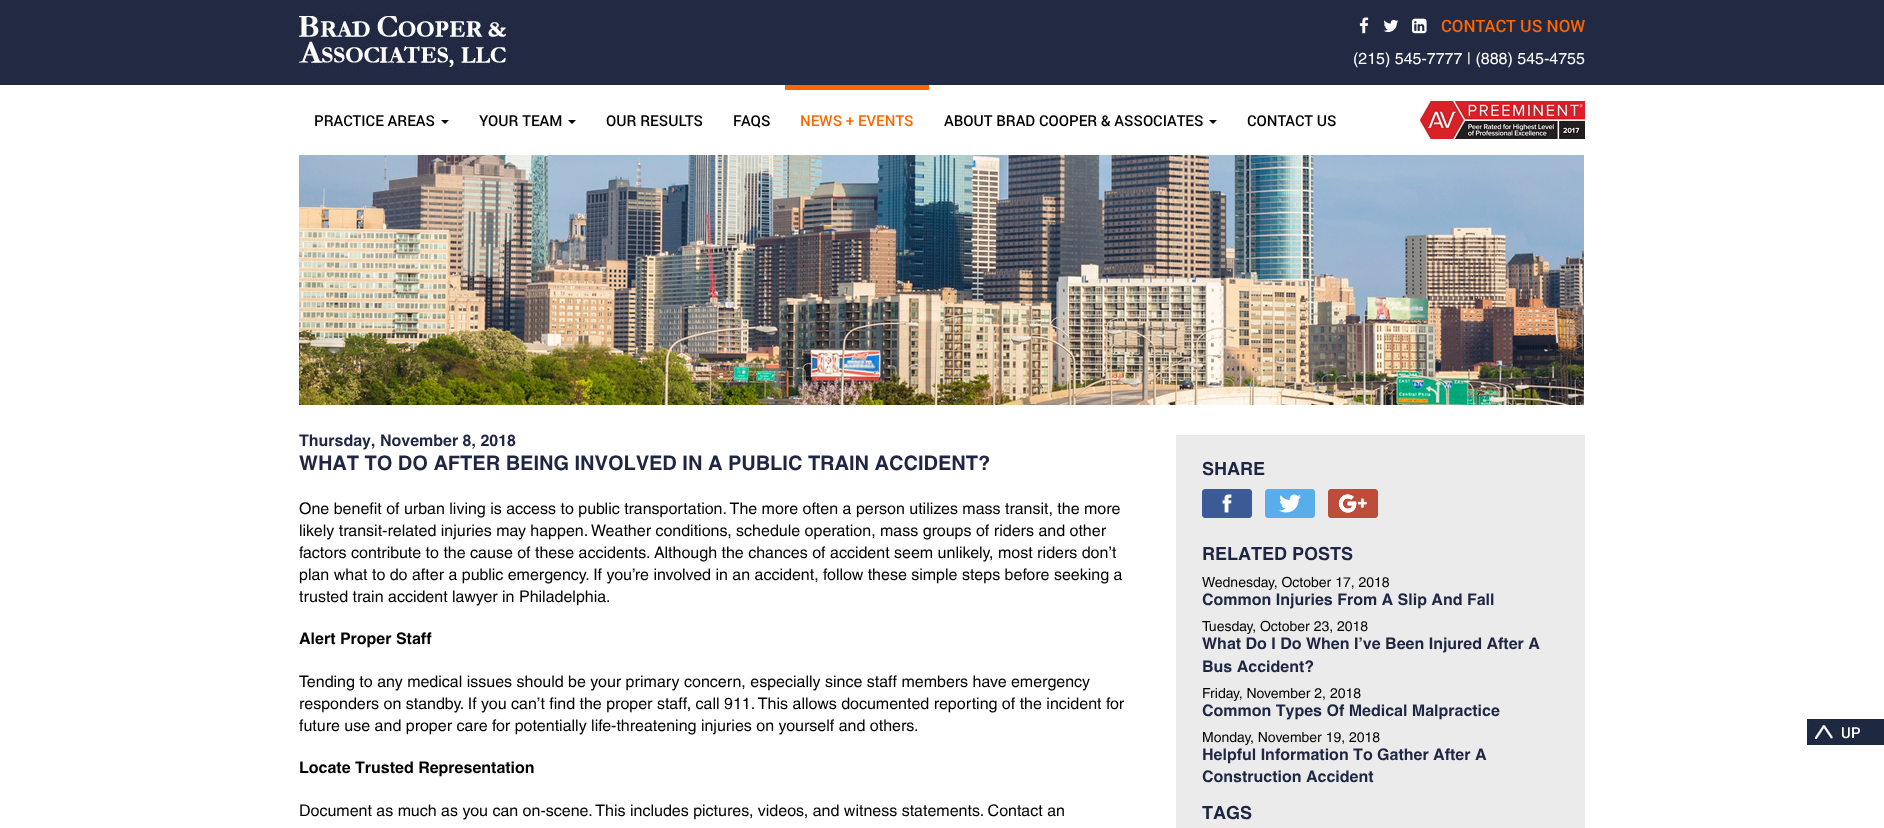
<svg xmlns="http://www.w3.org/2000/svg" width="1884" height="828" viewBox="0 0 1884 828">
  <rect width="100%" height="100%" fill="#212943"/>
  <image x="299" y="14" width="208" height="55" href="img/1.png"/>
  <image x="1359" y="17" width="10" height="17" href="img/2.png"/>
  <image x="1383" y="19" width="16" height="13" href="img/3.png"/>
  <image x="1412" y="18" width="15" height="16" href="img/4.png"/>
  <path d="M0 85h1884v743H0z" fill="#fff"/>
  <path d="M441 120H449L445 124Z" fill="#000"/>
  <path d="M568 120H576L572 124Z" fill="#000"/>
  <path d="M785 85h144v5H785z" fill="#f60"/>
  <path d="M1209 120H1217L1213 124Z" fill="#000"/>
  <image x="1420" y="101" width="165" height="38" href="img/5.png"/>
  <image x="299" y="155" width="1285" height="250" href="img/6.png"/>
  <path d="M1176 435h409v393H1176z" fill="#ebebeb"/>
  <image x="1202" y="489" width="50" height="29" href="img/7.png"/>
  <image x="1265" y="489" width="50" height="29" href="img/8.png"/>
  <image x="1328" y="489" width="50" height="29" href="img/9.png"/>
  <image x="1807" y="719" width="77" height="26" href="img/10.png"/>
  <text x="1441" y="32" font-family="Roboto" font-size="17" font-weight="500" fill="#f60">CONTACT US NOW</text>
  <text x="1353" y="64" font-family="Helvetica" font-size="16" font-weight="500" fill="#fff">(215) 545-7777 | (888) 545-4755</text>
  <g font-family="Roboto" font-size="15" font-weight="500" fill="#000">
    <text x="314" y="126">PRACTICE AREAS</text>
    <text x="479" y="126">YOUR TEAM</text>
    <text x="606" y="126">OUR RESULTS</text>
    <text x="733" y="126">FAQS</text>
  </g>
  <text x="800" y="126" font-family="Roboto" font-size="15" font-weight="500" fill="#f60">NEWS + EVENTS</text>
  <g font-family="Roboto" font-size="15" font-weight="500" fill="#000">
    <text x="944" y="126">ABOUT BRAD COOPER &amp; ASSOCIATES</text>
    <text x="1247" y="126">CONTACT US</text>
  </g>
  <text x="299" y="446" font-family="Helvetica" font-size="16" font-weight="bold" fill="#1f2643">Thursday, November 8, 2018</text>
  <text x="299" y="470" font-family="Helvetica" font-size="20" font-weight="bold" fill="#1f2643">WHAT TO DO AFTER BEING INVOLVED IN A PUBLIC TRAIN ACCIDENT?</text>
  <g font-family="Helvetica" font-size="16" font-weight="500" fill="#000">
    <text x="299" y="514">One benefit of urban living is access to public transportation. The more often a person utilizes mass transit, the more</text>
    <text x="299" y="536">likely transit-related injuries may happen. Weather conditions, schedule operation, mass groups of riders and other</text>
    <text x="299" y="558">factors contribute to the cause of these accidents. Although the chances of accident seem unlikely, most riders don’t</text>
    <text x="299" y="580">plan what to do after a public emergency. If you’re involved in an accident, follow these simple steps before seeking a</text>
    <text x="299" y="602">trusted train accident lawyer in Philadelphia.</text>
  </g>
  <text x="299" y="644" font-family="Helvetica" font-size="16" font-weight="bold" fill="#000">Alert Proper Staff</text>
  <g font-family="Helvetica" font-size="16" font-weight="500" fill="#000">
    <text x="299" y="687">Tending to any medical issues should be your primary concern, especially since staff members have emergency</text>
    <text x="299" y="709">responders on standby. If you can’t find the proper staff, call 911. This allows documented reporting of the incident for</text>
    <text x="299" y="731">future use and proper care for potentially life-threatening injuries on yourself and others.</text>
  </g>
  <text x="299" y="773" font-family="Helvetica" font-size="16" font-weight="bold" fill="#000">Locate Trusted Representation</text>
  <text x="299" y="816" font-family="Helvetica" font-size="16" font-weight="500" fill="#000">Document as much as you can on-scene. This includes pictures, videos, and witness statements. Contact an</text>
  <g font-family="Helvetica" font-size="18" font-weight="bold" fill="#1f2643">
    <text x="1202" y="475">SHARE</text>
    <text x="1202" y="560">RELATED POSTS</text>
  </g>
  <text x="1202" y="587" font-family="Helvetica" font-size="14" font-weight="500" fill="#000">Wednesday, October 17, 2018</text>
  <text x="1202" y="605" font-family="Helvetica" font-size="16" font-weight="bold" fill="#1f2643">Common Injuries From A Slip And Fall</text>
  <text x="1202" y="631" font-family="Helvetica" font-size="14" font-weight="500" fill="#000">Tuesday, October 23, 2018</text>
  <g font-family="Helvetica" font-size="16" font-weight="bold" fill="#1f2643">
    <text x="1202" y="649">What Do I Do When I’ve Been Injured After A</text>
    <text x="1202" y="672">Bus Accident?</text>
  </g>
  <text x="1202" y="698" font-family="Helvetica" font-size="14" font-weight="500" fill="#000">Friday, November 2, 2018</text>
  <text x="1202" y="716" font-family="Helvetica" font-size="16" font-weight="bold" fill="#1f2643">Common Types Of Medical Malpractice</text>
  <text x="1202" y="742" font-family="Helvetica" font-size="14" font-weight="500" fill="#000">Monday, November 19, 2018</text>
  <g font-family="Helvetica" font-size="16" font-weight="bold" fill="#1f2643">
    <text x="1202" y="760">Helpful Information To Gather After A</text>
    <text x="1202" y="782">Construction Accident</text>
  </g>
  <text x="1202" y="819" font-family="Helvetica" font-size="18" font-weight="bold" fill="#1f2643">TAGS</text>
</svg>
